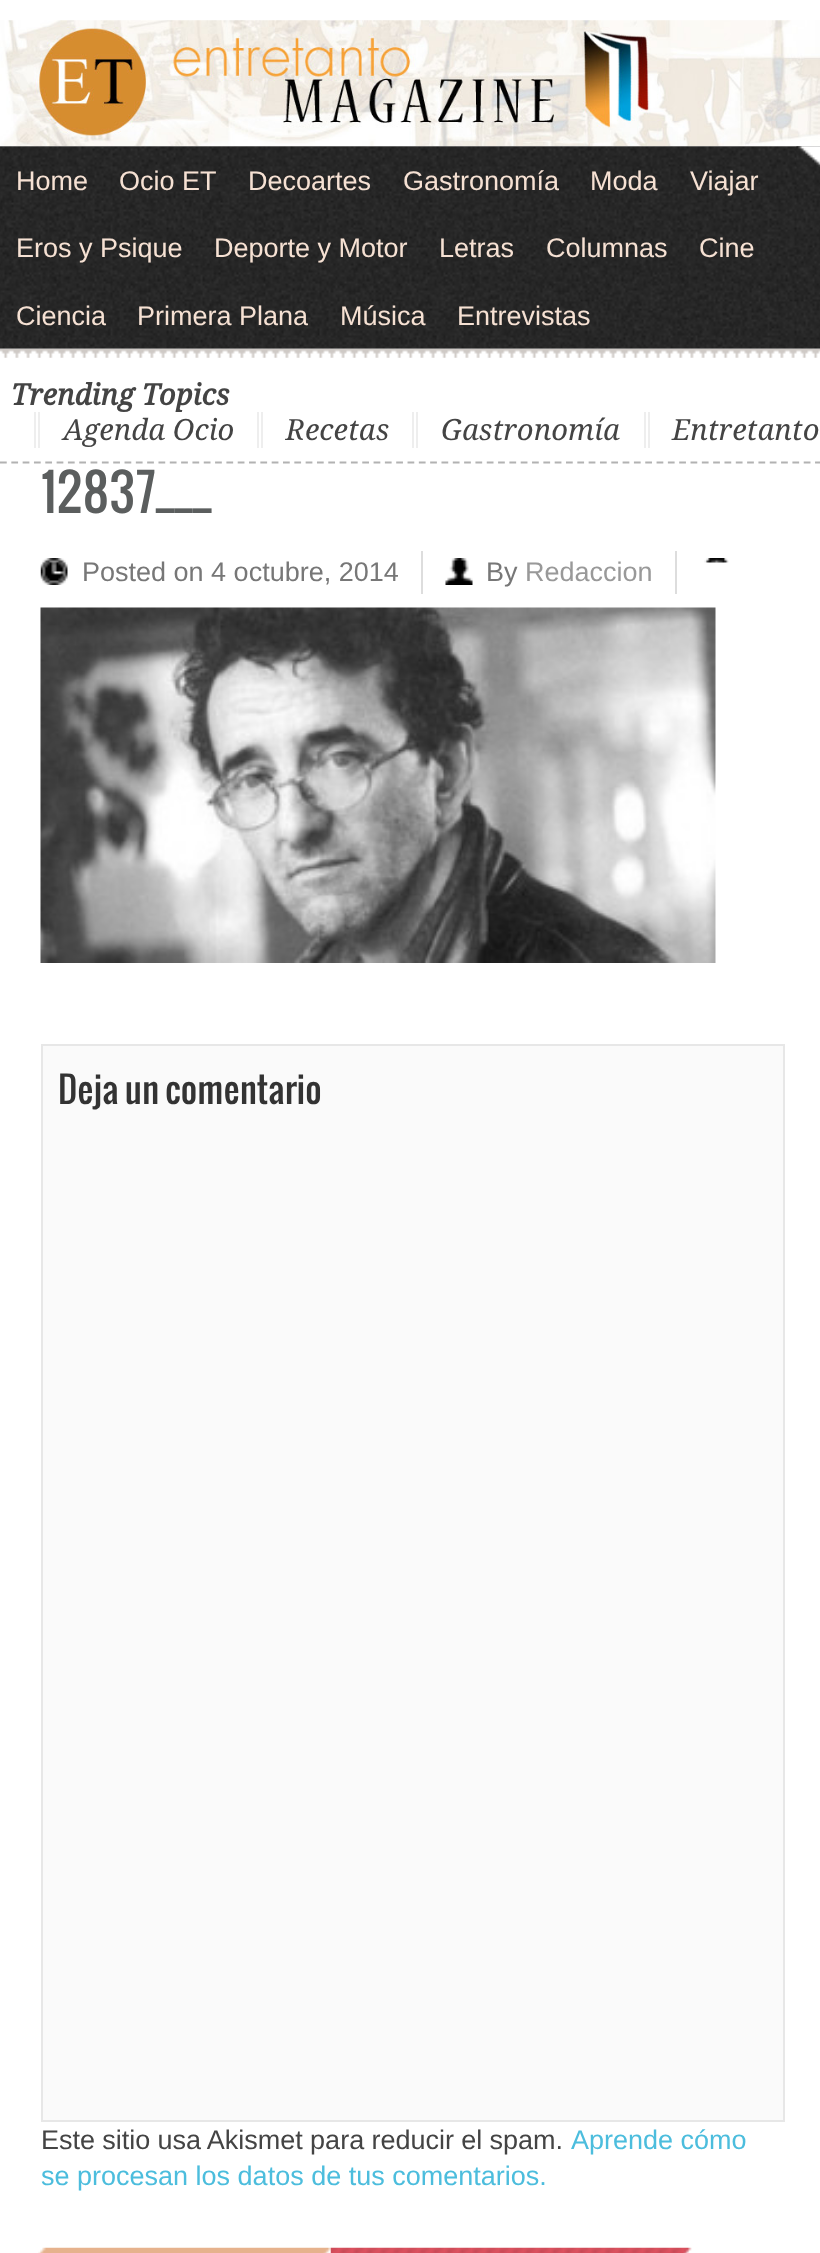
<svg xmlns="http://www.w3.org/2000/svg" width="820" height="2253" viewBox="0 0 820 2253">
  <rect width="100%" height="100%" fill="#fff"/>
  <image x="0" y="146" width="820" height="203" href="img/2.png"/>
  <image x="796" y="146" width="24" height="21" href="img/3.png"/>
  <image x="0" y="20" width="820" height="127" href="img/1.png"/>
  <image x="0" y="348" width="820" height="10" href="img/4.png"/>
  <path d="M34 412h2v36H34z" fill="#eee"/>
  <path d="M38 412h2v36H38z" fill="#eee"/>
  <path d="M257 412h2v36H257z" fill="#eee"/>
  <path d="M261 412h2v36H261z" fill="#eee"/>
  <path d="M412 412h2v36H412z" fill="#eee"/>
  <path d="M416 412h2v36H416z" fill="#eee"/>
  <path d="M644 412h2v36H644z" fill="#eee"/>
  <path d="M648 412h2v36H648z" fill="#eee"/>
  <path d="M0 462.5H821" fill="none" stroke="#b2b2b2" stroke-width="2.2" stroke-dasharray="6.75 4.57"/>
  <image x="704" y="558" width="25" height="5" href="img/5.png"/>
  <image x="40" y="558" width="28" height="27" href="img/6.png"/>
  <path d="M421 551h2v43H421z" fill="#ddd"/>
  <image x="445" y="558" width="28" height="27" href="img/7.png"/>
  <path d="M675 551h2v43H675z" fill="#ddd"/>
  <image x="40" y="607" width="676" height="356" href="img/8.png"/>
  <path d="M42 1045h742v1076H42z" fill="#fafafa" stroke="#e7e7e7" stroke-width="2"/>
  <image x="38" y="2247" width="293" height="6" href="img/9.png"/>
  <image x="330" y="2247" width="362" height="6" href="img/10.png"/>
  <g font-family="Liberation Sans" font-size="27" fill="#f6e1d3">
    <text x="16" y="190">Home</text>
    <text x="119" y="190">Ocio ET</text>
    <text x="248" y="190">Decoartes</text>
    <text x="403" y="190">Gastronomía</text>
    <text x="590" y="190">Moda</text>
    <text x="690" y="190">Viajar</text>
    <text x="16" y="257">Eros y Psique</text>
    <text x="214" y="257">Deporte y Motor</text>
    <text x="439" y="257">Letras</text>
    <text x="546" y="257">Columnas</text>
    <text x="699" y="257">Cine</text>
    <text x="16" y="325">Ciencia</text>
    <text x="137" y="325">Primera Plana</text>
    <text x="340" y="325">Música</text>
    <text x="457" y="325">Entrevistas</text>
  </g>
  <text x="11" y="405" font-family="Droid Serif" font-size="29.25" font-weight="bold" font-style="italic" fill="#444">Trending Topics</text>
  <g font-family="Droid Serif" font-size="29.25" font-style="italic" fill="#444">
    <text x="63" y="440">Agenda Ocio</text>
    <text x="286" y="440">Recetas</text>
    <text x="441" y="440">Gastronomía</text>
    <text x="672" y="440">Entretanto</text>
  </g>
  <text x="41" y="513" font-family="Oswald" font-size="49.5" fill="#5b5e5e">12837___</text>
  <g font-family="Liberation Sans" font-size="27" fill="#777">
    <text x="82" y="581">Posted on 4 octubre, 2014</text>
    <text x="486" y="581">By</text>
  </g>
  <text x="525" y="581" font-family="Liberation Sans" font-size="27" fill="#999">Redaccion</text>
  <text x="58" y="1104" font-family="Oswald" font-size="35" fill="#333">Deja un comentario</text>
  <text x="41" y="2149" word-spacing="-0.25" font-family="Liberation Sans" font-size="27" fill="#444">Este sitio usa Akismet para reducir el spam.</text>
  <g font-family="Liberation Sans" font-size="27" fill="#4cbddd">
    <text x="571" y="2149">Aprende cómo</text>
    <text x="41" y="2185">se procesan los datos de tus comentarios.</text>
  </g>
</svg>
